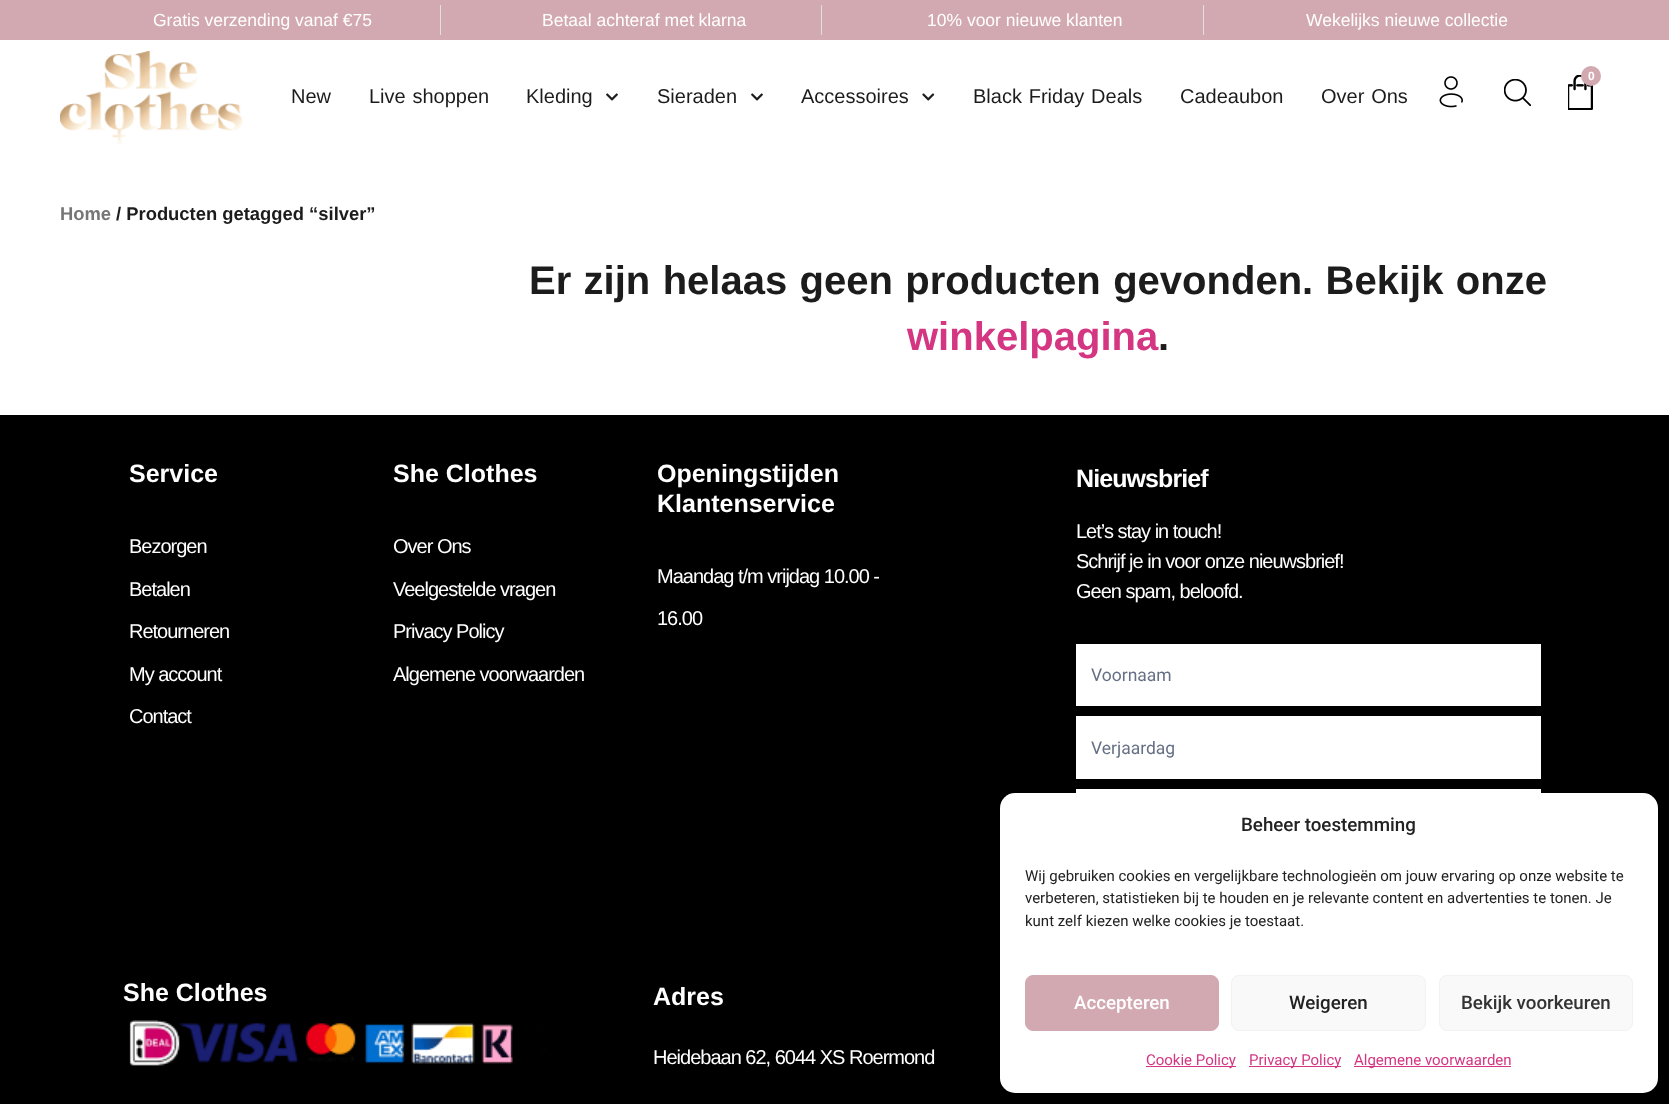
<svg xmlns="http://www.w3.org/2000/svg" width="1669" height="1104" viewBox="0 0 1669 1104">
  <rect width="100%" height="100%" fill="#fff"/>
  <path d="M0 0h1669v40H0z" fill="#d3a9b1"/>
  <path d="M440 5h1v30H440z" fill="#e0e0e0"/>
  <path d="M821 5h1v30H821z" fill="#e0e0e0"/>
  <path d="M1203 5h1v30H1203z" fill="#e0e0e0"/>
  <image x="60" y="51" width="183" height="93" href="img/1.png"/>
  <image x="1439" y="76" width="24" height="32" href="img/2.png"/>
  <image x="1504" y="79" width="27" height="27" href="img/3.png"/>
  <image x="1568" y="75" width="25" height="35" href="img/4.png"/>
  <circle cx="1591" cy="76" r="10" fill="#d3a9b1"/>
  <image x="606" y="93" width="12" height="8" href="img/5.png"/>
  <image x="751" y="93" width="12" height="8" href="img/5.png"/>
  <image x="922" y="93" width="13" height="8" href="img/6.png"/>
  <path d="M0 415h1669v689H0z" fill="#000"/>
  <path d="M1076 644h465v62H1076z" fill="#fff"/>
  <path d="M1076 716h465v63H1076z" fill="#fff"/>
  <path d="M1076 789h465v4H1076z" fill="#fff"/>
  <image x="129" y="1020" width="427" height="46" href="img/7.png"/>
  <rect x="1000" y="793" width="658" height="300" rx="15" fill="#fff"/>
  <rect x="1025.5" y="975.5" width="193" height="55" rx="7.5" fill="#d3a9b1" stroke="#d3a9b1"/>
  <rect x="1231.5" y="975.5" width="194" height="55" rx="7.5" fill="#f9f9f9" stroke="#f2f2f2"/>
  <rect x="1439.5" y="975.5" width="193" height="55" rx="7.5" fill="#f9f9f9" stroke="#f2f2f2"/>
  <path d="M1146 1066h90v1H1146z" fill="#d43682"/>
  <path d="M1249 1066h92v1H1249z" fill="#d43682"/>
  <path d="M1354 1066h157v1H1354z" fill="#d43682"/>
  <g font-family="Liberation Sans" font-size="17.5" fill="#fff">
    <text x="153" y="26">Gratis verzending vanaf €75</text>
    <text x="542" y="26">Betaal achteraf met klarna</text>
    <text x="927" y="26">10% voor nieuwe klanten</text>
    <text x="1306" y="26">Wekelijks nieuwe collectie</text>
  </g>
  <text x="1588" y="80" font-family="Liberation Sans" font-size="12" font-weight="bold" fill="#fff">0</text>
  <g font-family="Liberation Sans" font-size="20" fill="#1c1c1c">
    <text x="291" y="103">New</text>
    <text x="369" y="103" word-spacing="1.25">Live shoppen</text>
    <text x="526" y="103">Kleding</text>
    <text x="657" y="103">Sieraden</text>
    <text x="801" y="103">Accessoires</text>
    <text x="973" y="103" word-spacing="1.25">Black Friday Deals</text>
    <text x="1180" y="103">Cadeaubon</text>
    <text x="1321" y="103" word-spacing="1.25">Over Ons</text>
  </g>
  <text x="60" y="220" font-family="Liberation Sans" font-size="18.4" font-weight="bold" fill="#767676">Home</text>
  <text x="116" y="220" font-family="Liberation Sans" font-size="18.4" font-weight="bold" fill="#1c1c1c">/ Producten getagged “silver”</text>
  <text x="529" y="294" word-spacing="1.25" font-family="Liberation Sans" font-size="40" font-weight="bold" fill="#1c1c1c">Er zijn helaas geen producten gevonden. Bekijk onze</text>
  <text x="907" y="350" font-family="Liberation Sans" font-size="40" font-weight="bold" fill="#d43682">winkelpagina</text>
  <text x="1158" y="350" font-family="Liberation Sans" font-size="40" font-weight="bold" fill="#1c1c1c">.</text>
  <text x="129" y="482" font-family="Liberation Sans" font-size="25" font-weight="bold" fill="#fff">Service</text>
  <g font-family="Liberation Sans" font-size="20" letter-spacing="-1" fill="#fff">
    <text x="129" y="553">Bezorgen</text>
    <text x="129" y="596">Betalen</text>
    <text x="129" y="638">Retourneren</text>
    <text x="129" y="681">My account</text>
    <text x="129" y="723">Contact</text>
  </g>
  <text x="393" y="482" font-family="Liberation Sans" font-size="25" font-weight="bold" fill="#fff">She Clothes</text>
  <g font-family="Liberation Sans" font-size="20" letter-spacing="-1" fill="#fff">
    <text x="393" y="553">Over Ons</text>
    <text x="393" y="596">Veelgestelde vragen</text>
    <text x="393" y="638">Privacy Policy</text>
    <text x="393" y="681">Algemene voorwaarden</text>
  </g>
  <g font-family="Liberation Sans" font-size="25" font-weight="bold" fill="#fff">
    <text x="657" y="482">Openingstijden</text>
    <text x="657" y="512">Klantenservice</text>
  </g>
  <g font-family="Liberation Sans" font-size="20" letter-spacing="-1" fill="#fff">
    <text x="657" y="583">Maandag t/m vrijdag 10.00 -</text>
    <text x="657" y="625">16.00</text>
  </g>
  <text x="1076" y="487" font-family="Liberation Sans" font-size="25" font-weight="bold" letter-spacing="-0.9" fill="#fff">Nieuwsbrief</text>
  <g font-family="Liberation Sans" font-size="20" letter-spacing="-1" fill="#fff">
    <text x="1076" y="538">Let’s stay in touch!</text>
    <text x="1076" y="568">Schrijf je in voor onze nieuwsbrief!</text>
    <text x="1076" y="598">Geen spam, beloofd.</text>
  </g>
  <g font-family="Roboto" font-size="17.5" fill="#667085">
    <text x="1091" y="681">Voornaam</text>
    <text x="1091" y="754">Verjaardag</text>
  </g>
  <g font-family="Liberation Sans" font-size="25" font-weight="bold" fill="#fff">
    <text x="123" y="1001">She Clothes</text>
    <text x="653" y="1005">Adres</text>
  </g>
  <text x="653" y="1064" font-family="Liberation Sans" font-size="20" letter-spacing="-1" fill="#fff">Heidebaan 62, 6044 XS Roermond</text>
  <text x="1241" y="831" font-family="Roboto" font-size="18.75" font-weight="500" fill="#222">Beheer toestemming</text>
  <g font-family="Roboto" font-size="15" fill="#222">
    <text x="1025" y="881">Wij gebruiken cookies en vergelijkbare technologieën om jouw ervaring op onze website te</text>
    <text x="1025" y="903">verbeteren, statistieken bij te houden en je relevante content en advertenties te tonen. Je</text>
    <text x="1025" y="926">kunt zelf kiezen welke cookies je toestaat.</text>
  </g>
  <text x="1074" y="1009" font-family="Roboto" font-size="18.75" font-weight="500" fill="#fff">Accepteren</text>
  <text x="1289" y="1009" font-family="Roboto" font-size="18.75" font-weight="500" fill="#222">Weigeren</text>
  <text x="1461" y="1009" font-family="Roboto" font-size="18.75" font-weight="500" fill="#333">Bekijk voorkeuren</text>
  <g font-family="Roboto" font-size="15" fill="#d43682">
    <text x="1146" y="1065">Cookie Policy</text>
    <text x="1249" y="1065">Privacy Policy</text>
    <text x="1354" y="1065">Algemene voorwaarden</text>
  </g>
</svg>
